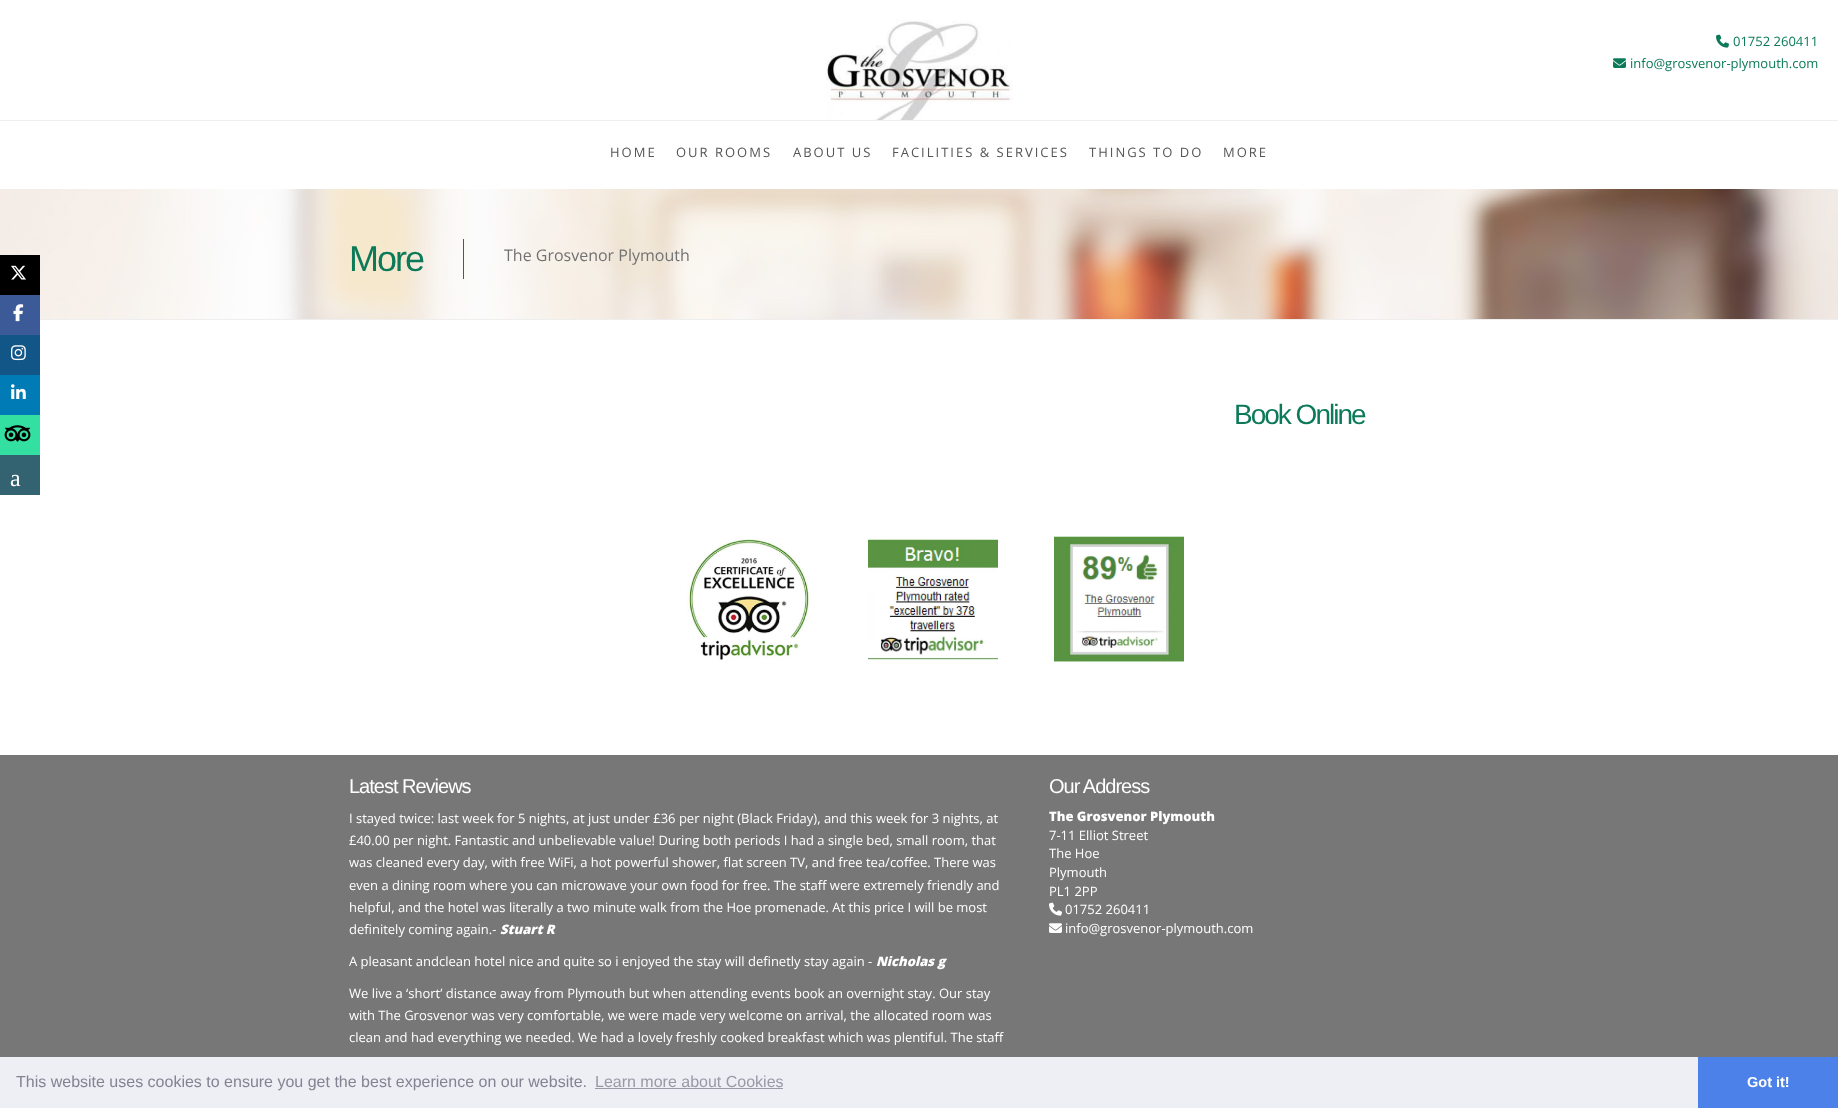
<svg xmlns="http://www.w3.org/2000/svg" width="1838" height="1108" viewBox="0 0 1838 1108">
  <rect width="100%" height="100%" fill="#fff"/>
  <image x="826" y="20" width="187" height="100" href="img/1.png"/>
  <image x="1716" y="34" width="13" height="14" href="img/2.png"/>
  <image x="1613" y="58" width="13" height="10" href="img/3.png"/>
  <path d="M0 120h1838v1H0z" fill="#eee"/>
  <image x="0" y="189" width="1838" height="130" href="img/4.png"/>
  <path d="M40 319h1798v1H40z" fill="#eee"/>
  <path d="M463 239h1v40H463z" fill="#555"/>
  <path d="M0 255h40v40H0z" fill="#000"/>
  <image x="11" y="265" width="15" height="15" href="img/5.png"/>
  <path d="M0 295h40v40H0z" fill="#3c5998"/>
  <image x="13" y="304" width="11" height="18" href="img/6.png"/>
  <path d="M0 335h40v40H0z" fill="#125688"/>
  <image x="11" y="345" width="15" height="16" href="img/7.png"/>
  <path d="M0 375h40v40H0z" fill="#007bb5"/>
  <image x="11" y="384" width="15" height="15" href="img/8.png"/>
  <path d="M0 415h40v40H0z" fill="#34e0a1"/>
  <image x="4" y="425" width="27" height="17" href="img/9.png"/>
  <path d="M0 455h40v40H0z" fill="#336270"/>
  <image x="687" y="538" width="124" height="122" href="img/10.png"/>
  <image x="868" y="538" width="130" height="122" href="img/11.png"/>
  <image x="1054" y="536" width="130" height="126" href="img/12.png"/>
  <path d="M0 755h1838v302H0z" fill="#777"/>
  <image x="1049" y="902" width="13" height="14" href="img/13.png"/>
  <image x="1049" y="923" width="13" height="10" href="img/14.png"/>
  <path d="M0 1057h1698v51H0z" fill="#edeff5"/>
  <path d="M595 1088h188v1H595z" fill="#9899a5"/>
  <path d="M1698 1057h140v51H1698z" fill="#4b81e8"/>
  <g font-family="Open Sans" font-size="13" fill="#0c7a59">
    <text x="1733" y="46">01752 260411</text>
    <text x="1630" y="68">info@grosvenor-plymouth.com</text>
  </g>
  <g font-family="Open Sans" font-size="13" letter-spacing="2" fill="#555">
    <text x="610" y="157">HOME</text>
    <text x="676" y="157">OUR ROOMS</text>
    <text x="793" y="157">ABOUT US</text>
    <text x="892" y="157">FACILITIES &amp; SERVICES</text>
    <text x="1089" y="157">THINGS TO DO</text>
    <text x="1223" y="157">MORE</text>
  </g>
  <text x="349" y="271" font-family="Liberation Sans" font-size="36" letter-spacing="-2" fill="#0c7a59">More</text>
  <text x="504" y="261" font-family="Open Sans" font-size="16" fill="#727272">The Grosvenor Plymouth</text>
  <text x="1234" y="424" font-family="Liberation Sans" font-size="28" letter-spacing="-2" fill="#0c7a59">Book Online</text>
  <text x="10" y="486" font-family="Liberation Serif" font-size="24" fill="#fff">a</text>
  <text x="349" y="793" font-family="Liberation Sans" font-size="20" letter-spacing="-1" fill="#fff">Latest Reviews</text>
  <g font-family="Open Sans" font-size="13" fill="#fff">
    <text x="349" y="823">I stayed twice: last week for 5 nights, at just under £36 per night (Black Friday), and this week for 3 nights, at</text>
    <text x="349" y="845">£40.00 per night. Fantastic and unbelievable value! During both periods I had a single bed, small room, that</text>
    <text x="349" y="867">was cleaned every day, with free WiFi, a hot powerful shower, flat screen TV, and free tea/coffee. There was</text>
    <text x="349" y="890">even a dining room where you can microwave your own food for free. The staff were extremely friendly and</text>
    <text x="349" y="912">helpful, and the hotel was literally a two minute walk from the Hoe promenade. At this price I will be most</text>
    <text x="349" y="934">definitely coming again.-</text>
  </g>
  <text x="500" y="934" font-family="Open Sans" font-size="13" font-weight="800" font-style="italic" fill="#fff">Stuart R</text>
  <text x="349" y="966" font-family="Open Sans" font-size="13" fill="#fff">A pleasant andclean hotel nice and quite so i enjoyed the stay will definetly stay again -</text>
  <text x="876" y="966" font-family="Open Sans" font-size="13" font-weight="800" font-style="italic" fill="#fff">Nicholas g</text>
  <g font-family="Open Sans" font-size="13" fill="#fff">
    <text x="349" y="998">We live a ‘short’ distance away from Plymouth but when attending events book an overnight stay. Our stay</text>
    <text x="349" y="1020">with The Grosvenor was very comfortable, we were made very welcome on arrival, the allocated room was</text>
    <text x="349" y="1042">clean and had everything we needed. We had a lovely freshly cooked breakfast which was plentiful. The staff</text>
  </g>
  <text x="1049" y="793" font-family="Liberation Sans" font-size="20" letter-spacing="-1" fill="#fff">Our Address</text>
  <text x="1049" y="821" font-family="Open Sans" font-size="13" font-weight="800" fill="#fff">The Grosvenor Plymouth</text>
  <g font-family="Open Sans" font-size="13" fill="#fff">
    <text x="1049" y="840">7-11 Elliot Street</text>
    <text x="1049" y="858">The Hoe</text>
    <text x="1049" y="877">Plymouth</text>
    <text x="1049" y="896">PL1 2PP</text>
    <text x="1065" y="914">01752 260411</text>
    <text x="1065" y="933">info@grosvenor-plymouth.com</text>
  </g>
  <text x="16" y="1087" font-family="Liberation Sans" font-size="16" fill="#838391">This website uses cookies to ensure you get the best experience on our website.</text>
  <text x="595" y="1087" font-family="Liberation Sans" font-size="16" fill="#9899a5">Learn more about Cookies</text>
  <text x="1747" y="1087" font-family="Liberation Sans" font-size="14.5" font-weight="bold" fill="#fff">Got it!</text>
</svg>
